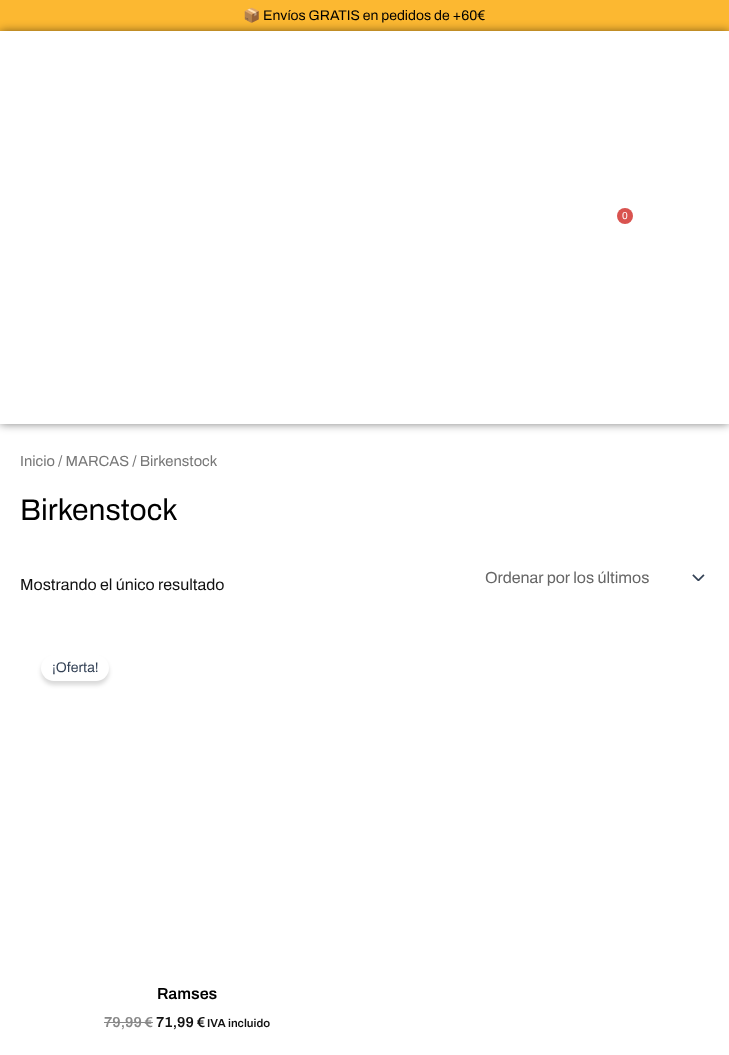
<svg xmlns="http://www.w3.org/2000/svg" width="729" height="1055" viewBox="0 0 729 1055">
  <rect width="100%" height="100%" fill="#fff"/>
  <path d="M0 0h729v31H0z" fill="#fcb831"/>
  <path d="M0 31h729v393H0z" fill="#00000080" filter="blur(5px)"/>
  <path d="M0 31h729v393H0z" fill="#fff"/>
  <circle cx="625" cy="216" r="8" fill="#d9534f"/>
  <image x="692" y="574" width="13" height="7" href="img/1.png"/>
  <rect x="41" y="659" width="68" height="26" rx="13" fill="#00000026" filter="blur(2px)"/>
  <rect x="41" y="655" width="68" height="26" rx="13" fill="#fff"/>
  <path d="M104 1022h49v1H104z" fill="#888"/>
  <text x="243" y="20" font-family="Noto Color Emoji" font-size="14" fill="#000">📦</text>
  <text x="263" y="20" font-family="Archivo" font-size="14" fill="#000">Envíos GRATIS en pedidos de +60€</text>
  <text x="622" y="219" font-family="Archivo" font-size="10" fill="#fff">0</text>
  <text x="20" y="466" font-family="Archivo" font-size="14.75" fill="#777">Inicio / MARCAS / Birkenstock</text>
  <text x="20" y="520" font-family="Archivo" font-size="30" fill="#000">Birkenstock</text>
  <text x="20" y="590" font-family="Archivo" font-size="16" fill="#111">Mostrando el único resultado</text>
  <text x="485" y="583" font-family="Archivo" font-size="16" fill="#666">Ordenar por los últimos</text>
  <text x="52" y="672" font-family="Archivo" font-size="14" fill="#334155">¡Oferta!</text>
  <text x="157" y="999" font-family="Archivo" font-size="16" font-weight="600" fill="#000">Ramses</text>
  <text x="104" y="1027" font-family="Archivo" font-size="14.5" font-weight="600" fill="#888">79,99 €</text>
  <text x="156" y="1027" font-family="Archivo" font-size="14.5" font-weight="600" fill="#111">71,99 €</text>
  <text x="207" y="1027" font-family="Archivo" font-size="11.5" font-weight="600" fill="#111">IVA incluido</text>
</svg>
